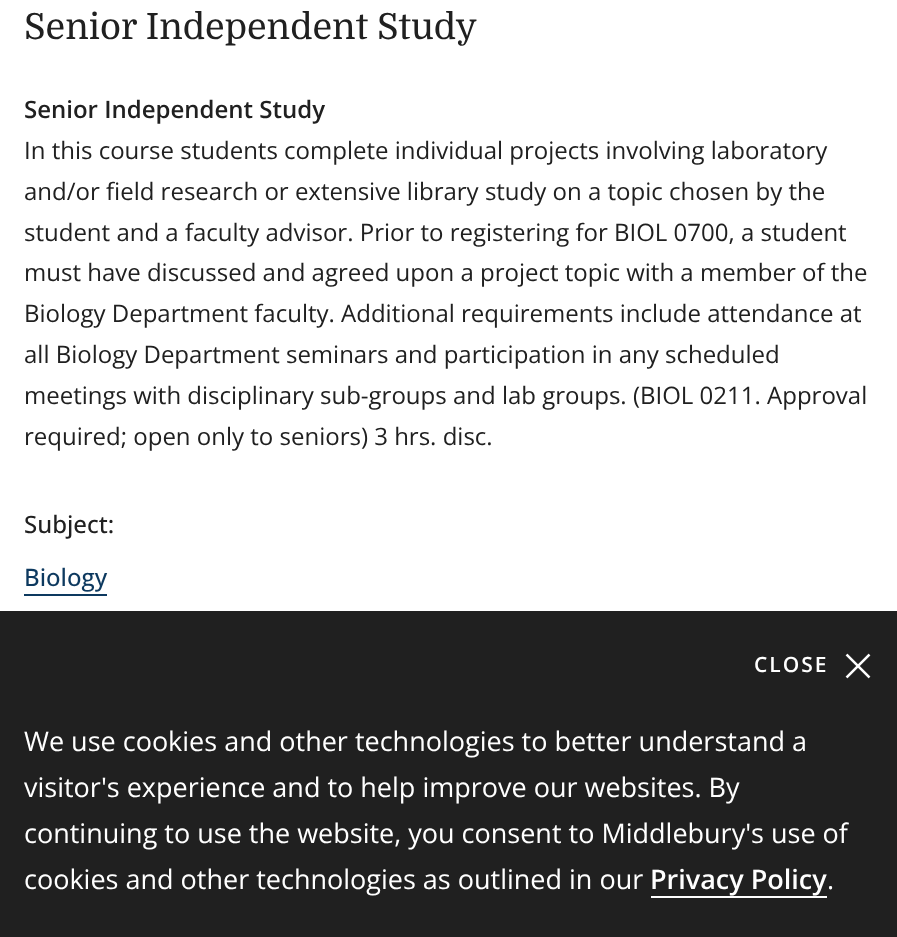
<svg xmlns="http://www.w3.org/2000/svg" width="897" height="937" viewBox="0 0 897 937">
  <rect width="100%" height="100%" fill="#fff"/>
  <path d="M24 594h83v2H24z" fill="#0d395f"/>
  <path d="M0 611h897v326H0z" fill="#202020"/>
  <image x="845" y="653" width="26" height="26" href="img/1.png"/>
  <path d="M651 896h176v2H651z" fill="#fff"/>
  <text x="24" y="39" font-family="Domine" font-size="36" fill="#202020">Senior Independent Study</text>
  <text x="24" y="118" font-family="Open Sans" font-size="24" font-weight="600" fill="#202020">Senior Independent Study</text>
  <g font-family="Open Sans" font-size="24" fill="#202020">
    <text x="24" y="159">In this course students complete individual projects involving laboratory</text>
    <text x="24" y="200">and/or field research or extensive library study on a topic chosen by the</text>
    <text x="24" y="241">student and a faculty advisor. Prior to registering for BIOL 0700, a student</text>
    <text x="24" y="281">must have discussed and agreed upon a project topic with a member of the</text>
    <text x="24" y="322">Biology Department faculty. Additional requirements include attendance at</text>
    <text x="24" y="363">all Biology Department seminars and participation in any scheduled</text>
    <text x="24" y="404">meetings with disciplinary sub-groups and lab groups. (BIOL 0211. Approval</text>
    <text x="24" y="445">required; open only to seniors) 3 hrs. disc.</text>
  </g>
  <text x="24" y="533" font-family="Open Sans" font-size="24" font-weight="500" fill="#202020">Subject:</text>
  <text x="24" y="586" font-family="Open Sans" font-size="24" font-weight="500" fill="#0d395f">Biology</text>
  <text x="754" y="672" font-family="Open Sans" font-size="21" font-weight="600" letter-spacing="2" fill="#fff">CLOSE</text>
  <g font-family="Open Sans" font-size="27" fill="#fff">
    <text x="24" y="751">We use cookies and other technologies to better understand a</text>
    <text x="24" y="797">visitor's experience and to help improve our websites. By</text>
    <text x="24" y="843">continuing to use the website, you consent to Middlebury's use of</text>
    <text x="24" y="889">cookies and other technologies as outlined in our</text>
  </g>
  <text x="650" y="889" font-family="Open Sans" font-size="27" font-weight="600" fill="#fff">Privacy Policy</text>
  <text x="827" y="889" font-family="Open Sans" font-size="27" fill="#fff">.</text>
</svg>
